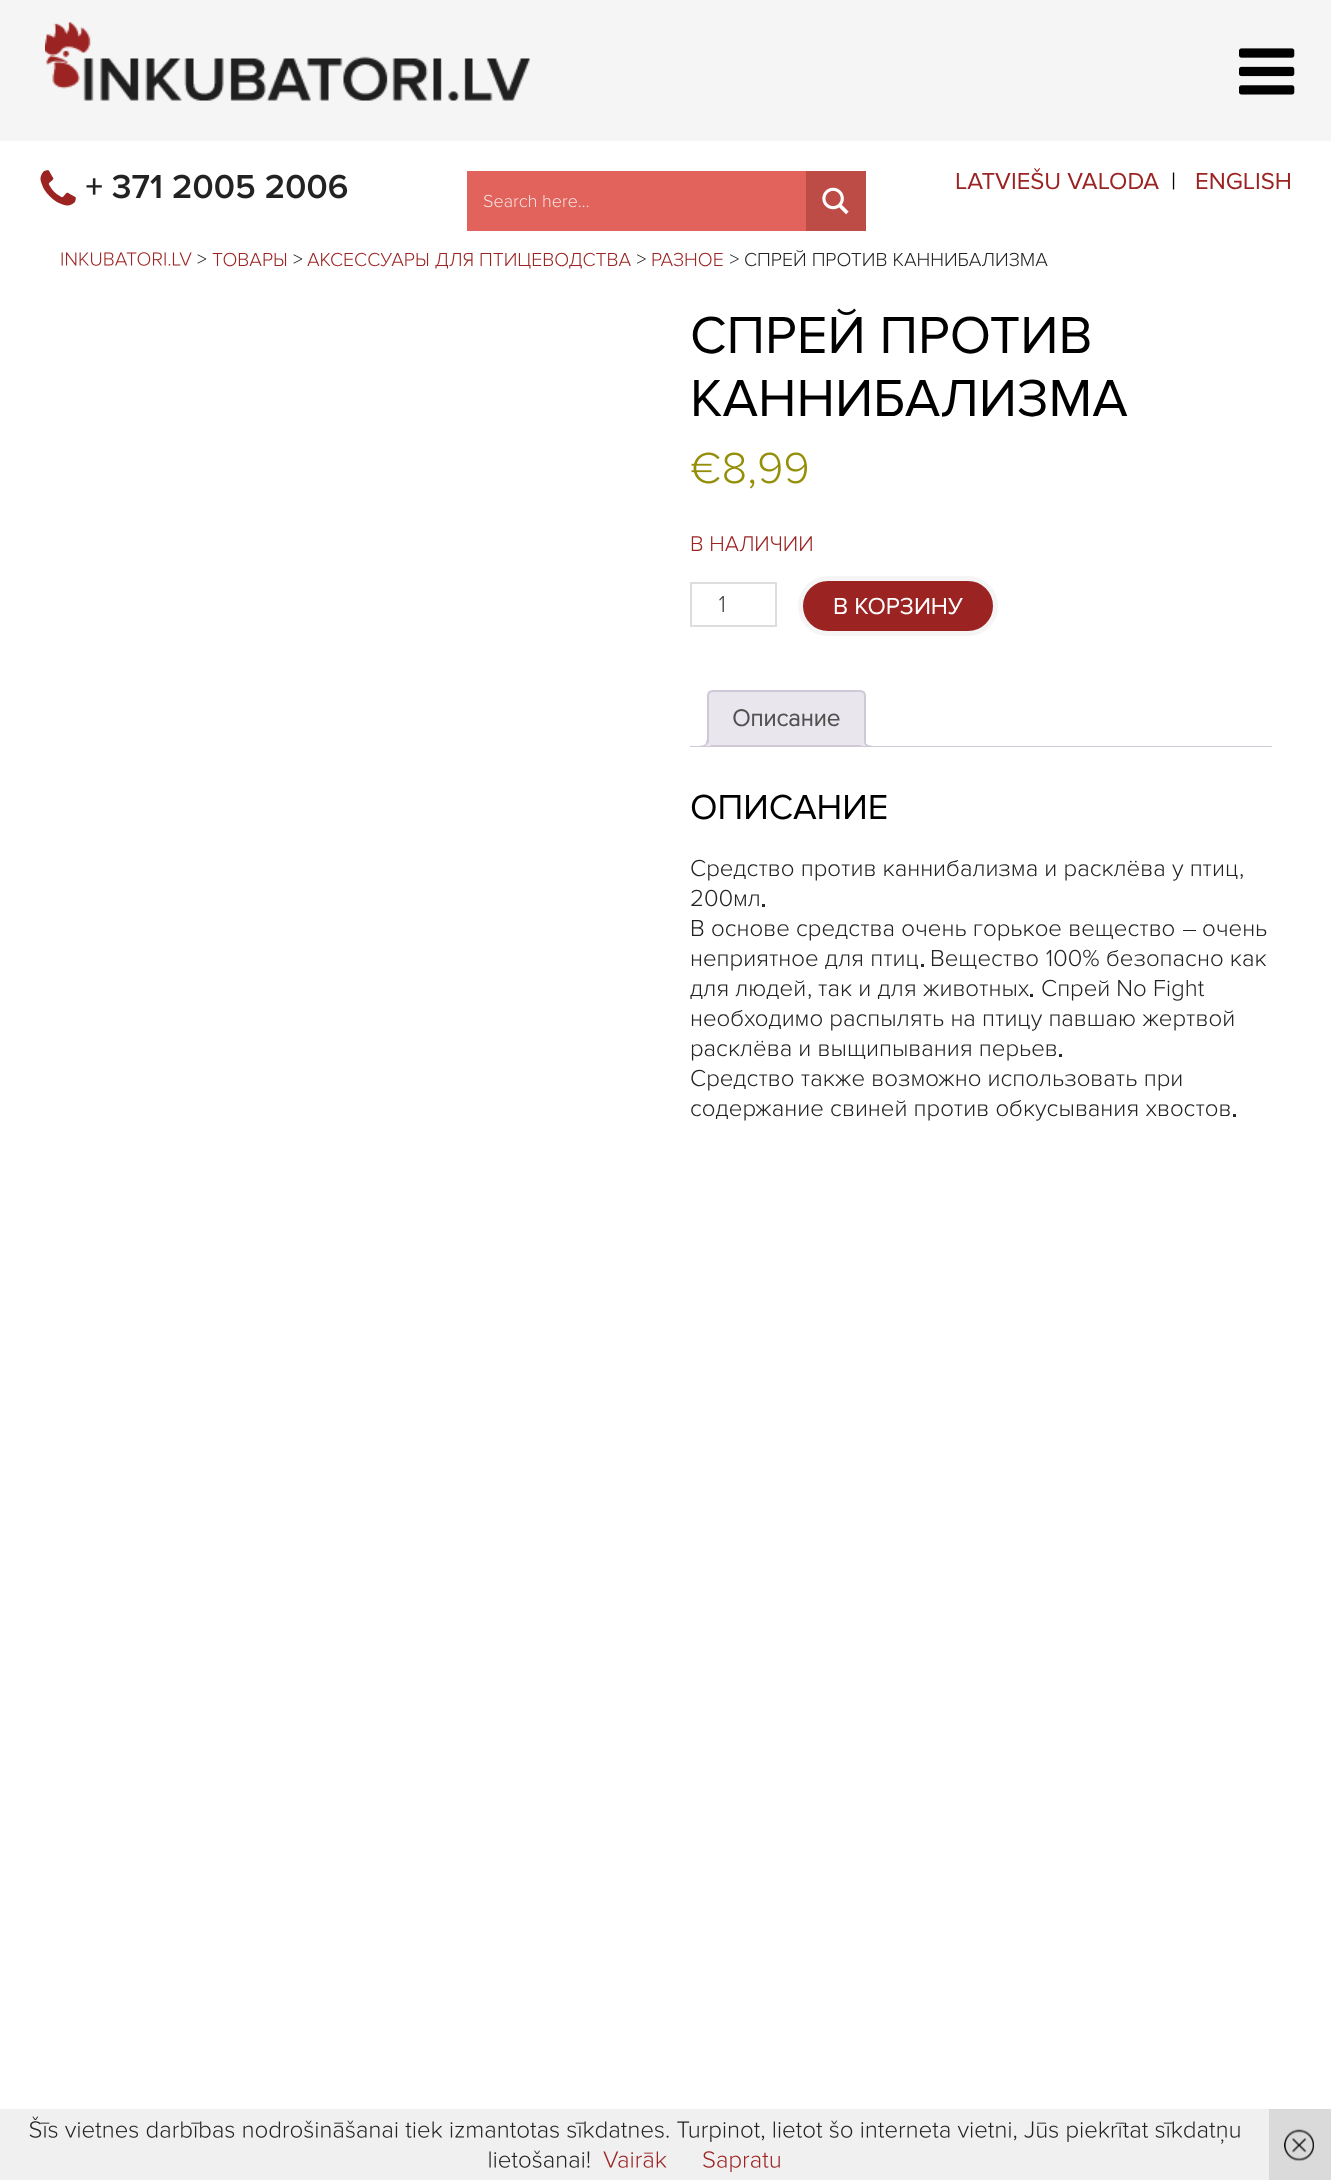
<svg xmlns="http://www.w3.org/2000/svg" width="1331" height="2180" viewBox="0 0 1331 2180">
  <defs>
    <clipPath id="clip1"><path d="M690 690h582v57H690z"/></clipPath>
  </defs>
  <rect width="100%" height="100%" fill="#fff"/>
  <path d="M0 0h1331v141H0z" fill="#f5f5f5"/>
  <image x="45" y="22" width="485" height="79" href="img/1.png"/>
  <image x="1239" y="48" width="56" height="47" href="img/2.png"/>
  <image x="40" y="170" width="36" height="36" href="img/3.png"/>
  <image x="86" y="174" width="262" height="25" href="img/4.png"/>
  <path d="M467 171h339v60H467z" fill="#e1635c"/>
  <image x="483" y="194" width="106" height="14" href="img/5.png"/>
  <path d="M806 171h60v60H806z" fill="#be4c46"/>
  <image x="822" y="187" width="27" height="28" href="img/6.png"/>
  <image x="61" y="252" width="131" height="14" href="img/7.png"/>
  <image x="197" y="254" width="10" height="10" href="img/8.png"/>
  <image x="293" y="254" width="10" height="10" href="img/8.png"/>
  <image x="637" y="254" width="9" height="10" href="img/9.png"/>
  <image x="730" y="254" width="9" height="10" href="img/9.png"/>
  <image x="691" y="452" width="29" height="32" href="img/10.png"/>
  <image x="724" y="452" width="83" height="37" href="img/11.png"/>
  <path d="M691 583h85v43H691z" fill="none" stroke="#ddd" stroke-width="2"/>
  <image x="719" y="596" width="5" height="16" href="img/12.png"/>
  <rect x="800.5" y="578.5" width="195" height="55" rx="27.5" fill="#9b2322" stroke="#f5f5f5" stroke-width="5"/>
  <path d="M713 691H860C863 691 865 693 865 696V746H708V696C708 693 710 691 713 691Z" fill="#e9e6ed" stroke="#cfc8d8" stroke-width="2"/>
  <g clip-path="url(#clip1)">
    <path d="M704 746.5V750C708.5 750 711 747.5 711 743H707.5C707 744.5 705.5 746 704 746.5Z" fill="#e9e6ed"/>
  </g>
  <path d="M700.5 739.5H708C708 745 706 747 700.5 747ZM700.5 739.5H706.5C706.5 744 705 745.5 700.5 745.5Z" fill="#cfc8d8" fill-rule="evenodd"/>
  <g clip-path="url(#clip1)">
    <path d="M861 743C861 748.5 864 750 869 750V747C867 746.5 865 745 864.5 743Z" fill="#e9e6ed"/>
  </g>
  <path d="M864 739.5H871.5V747C867.5 747 864 745.5 864 741ZM865.5 739.5H871.5V745.5C868.5 745.5 865.5 744.5 865.5 741Z" fill="#cfc8d8" fill-rule="evenodd"/>
  <path d="M690 746h582v1H690z" fill="#cfc8d8"/>
  <image x="1240" y="874" width="3" height="5" href="img/13.png"/>
  <image x="691" y="889" width="41" height="18" href="img/14.png"/>
  <path d="M762 904h3v3H762z" fill="#292929"/>
  <path d="M1183 930h13v1H1183z" fill="#222"/>
  <path d="M921 964h3v3H921z" fill="#292929"/>
  <image x="1046" y="949" width="53" height="18" href="img/15.png"/>
  <image x="808" y="994" width="3" height="5" href="img/13.png"/>
  <path d="M1030 994h3v3H1030z" fill="#222"/>
  <image x="1118" y="980" width="87" height="21" href="img/16.png"/>
  <path d="M1059 1054h3v3H1059z" fill="#292929"/>
  <path d="M1233 1114h3v3H1233z" fill="#292929"/>
  <path d="M0 2109h1269v71H0z" fill="#f0f0f0"/>
  <image x="29" y="2116" width="1211" height="28" href="img/17.png"/>
  <image x="489" y="2150" width="101" height="18" href="img/18.png"/>
  <image x="603" y="2151" width="64" height="17" href="img/19.png"/>
  <image x="703" y="2151" width="77" height="21" href="img/20.png"/>
  <path d="M1269 2109h62v71H1269z" fill="#dadada"/>
  <image x="1284" y="2129" width="30" height="32" href="img/21.png"/>
  <text x="955" y="189" font-family="Proxima Nova" font-size="24" fill="#9b2322">LATVIEŠU VALODA</text>
  <text x="1171" y="189" font-family="Proxima Nova" font-size="24" fill="#000">|</text>
  <text x="1195" y="189" font-family="Proxima Nova" font-size="24" fill="#9b2322">ENGLISH</text>
  <g font-family="Proxima Nova" font-size="19.5" font-weight="300" fill="#9b2322">
    <text x="212" y="266">ТОВАРЫ</text>
    <text x="307" y="266">АКСЕССУАРЫ ДЛЯ ПТИЦЕВОДСТВА</text>
    <text x="651" y="266">РАЗНОЕ</text>
  </g>
  <text x="744" y="266" font-family="Proxima Nova" font-size="19.5" font-weight="300" fill="#222">СПРЕЙ ПРОТИВ КАННИБАЛИЗМА</text>
  <g font-family="Proxima Nova" font-size="54" fill="#000">
    <text x="690" y="353">СПРЕЙ ПРОТИВ</text>
    <text x="690" y="416">КАННИБАЛИЗМА</text>
  </g>
  <text x="690" y="551" font-family="Proxima Nova" font-size="22" font-weight="300" fill="#9b2322">В НАЛИЧИИ</text>
  <text x="833" y="614" font-family="Proxima Nova" font-size="24" fill="#fff">В КОРЗИНУ</text>
  <text x="732" y="726" font-family="Proxima Nova" font-size="24" font-weight="bold" fill="#515151">Описание</text>
  <text x="690" y="819" font-family="Proxima Nova" font-size="36" fill="#000">ОПИСАНИЕ</text>
  <g font-family="Proxima Nova" font-size="24" font-weight="300" fill="#222">
    <text x="690" y="876">Средство против каннибализма и расклёва у птиц</text>
    <text x="733" y="906">мл</text>
    <text x="690" y="936">В основе средства очень горькое вещество</text>
    <text x="1202" y="936">очень</text>
    <text x="690" y="966">неприятное для птиц</text>
    <text x="930" y="966">Вещество</text>
    <text x="1106" y="966">безопасно как</text>
    <text x="690" y="996">для людей</text>
    <text x="818" y="996">так и для животных</text>
    <text x="1041" y="996">Спрей</text>
    <text x="690" y="1026">необходимо распылять на птицу павшаю жертвой</text>
    <text x="690" y="1056">расклёва и выщипывания перьев</text>
    <text x="690" y="1086">Средство также возможно использовать при</text>
    <text x="690" y="1116">содержание свиней против обкусывания хвостов</text>
  </g>
</svg>
